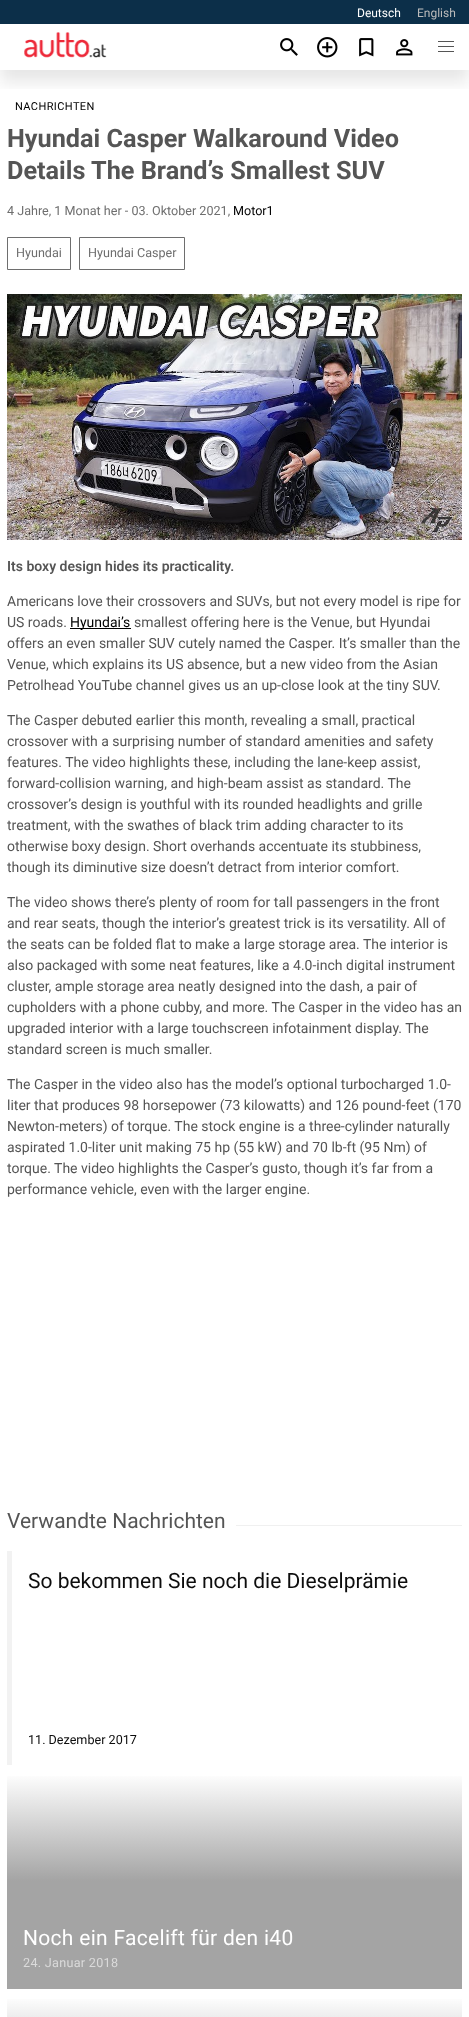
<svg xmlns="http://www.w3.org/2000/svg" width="469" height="2017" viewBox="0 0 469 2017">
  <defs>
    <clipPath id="clip1"><path d="M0 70h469v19H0z"/></clipPath>
    <linearGradient id="g1" gradientUnits="userSpaceOnUse" x1="235" y1="1773" x2="235" y2="1989"><stop offset="0" stop-color="#fff"/><stop offset="0.5" stop-color="#a4a4a4"/></linearGradient>
    <linearGradient id="g2" gradientUnits="userSpaceOnUse" x1="235" y1="1996" x2="235" y2="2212"><stop offset="0" stop-color="#fff"/><stop offset="0.5" stop-color="#a3a3a3"/></linearGradient>
  </defs>
  <rect width="100%" height="100%" fill="#fff"/>
  <path d="M0 0h469v24H0z" fill="#0c2f49"/>
  <g clip-path="url(#clip1)">
    <path d="M0 36h469v46H0z" fill="#0a0a0a1a" filter="blur(8px)"/>
  </g>
  <image x="24" y="32" width="83" height="26" href="img/1.png"/>
  <path d="M438 41h16v1H438z" fill="#555"/>
  <path d="M438 46h16v1H438z" fill="#555"/>
  <path d="M438 51h16v1H438z" fill="#555"/>
  <image x="280" y="38" width="18" height="18" href="img/2.png"/>
  <image x="317" y="37" width="21" height="21" href="img/3.png"/>
  <image x="359" y="38" width="15" height="19" href="img/4.png"/>
  <image x="396" y="39" width="17" height="17" href="img/5.png"/>
  <path d="M7.5 237.5h63v32H7.5z" fill="none" stroke="#6e6e6e"/>
  <path d="M79.5 237.5h105v32H79.5z" fill="none" stroke="#6e6e6e"/>
  <image x="7" y="294" width="455" height="246" href="img/6.png"/>
  <path d="M70 628h61v1H70z" fill="#000"/>
  <path d="M236 1525h226v1H236z" fill="#f0f0f0"/>
  <path d="M7 1551h5v214H7z" fill="#f2f2f2"/>
  <path d="M7 1776h455v213H7z" fill="url(#g1)"/>
  <path d="M7 1999h455v18H7z" fill="url(#g2)"/>
  <text x="357" y="17" font-family="Roboto" font-size="12" fill="#fff">Deutsch</text>
  <text x="417" y="17" font-family="Roboto" font-size="12" fill="#bbb">English</text>
  <text x="15" y="110" font-family="Roboto" font-size="11" letter-spacing="0.4" fill="#000">NACHRICHTEN</text>
  <g font-family="Roboto" font-size="25.25" font-weight="bold" fill="#555">
    <text x="7" y="147">Hyundai Casper Walkaround Video</text>
    <text x="7" y="179">Details The Brand’s Smallest SUV</text>
  </g>
  <text x="7" y="215" font-family="Roboto" font-size="12.6" fill="#6e6e6e">4 Jahre, 1 Monat her - 03. Oktober 2021,</text>
  <text x="233" y="215" font-family="Roboto" font-size="12.6" fill="#000">Motor1</text>
  <g font-family="Roboto" font-size="12.6" fill="#6e6e6e">
    <text x="16" y="257">Hyundai</text>
    <text x="88" y="257">Hyundai Casper</text>
  </g>
  <text x="7" y="571" font-family="Roboto" font-size="14" font-weight="600" fill="#555">Its boxy design hides its practicality.</text>
  <g font-family="Roboto" font-size="14" fill="#555">
    <text x="7" y="606">Americans love their crossovers and SUVs, but not every model is ripe for</text>
    <text x="7" y="627">US roads.</text>
  </g>
  <text x="70" y="627" font-family="Roboto" font-size="14" fill="#000">Hyundai’s</text>
  <g font-family="Roboto" font-size="14" fill="#555">
    <text x="134" y="627">smallest offering here is the Venue, but Hyundai</text>
    <text x="7" y="648">offers an even smaller SUV cutely named the Casper. It’s smaller than the</text>
    <text x="7" y="669">Venue, which explains its US absence, but a new video from the Asian</text>
    <text x="7" y="690">Petrolhead YouTube channel gives us an up-close look at the tiny SUV.</text>
    <text x="7" y="725">The Casper debuted earlier this month, revealing a small, practical</text>
    <text x="7" y="746">crossover with a surprising number of standard amenities and safety</text>
    <text x="7" y="767">features. The video highlights these, including the lane-keep assist,</text>
    <text x="7" y="788">forward-collision warning, and high-beam assist as standard. The</text>
    <text x="7" y="809">crossover’s design is youthful with its rounded headlights and grille</text>
    <text x="7" y="830">treatment, with the swathes of black trim adding character to its</text>
    <text x="7" y="851">otherwise boxy design. Short overhands accentuate its stubbiness,</text>
    <text x="7" y="872">though its diminutive size doesn’t detract from interior comfort.</text>
    <text x="7" y="907">The video shows there’s plenty of room for tall passengers in the front</text>
    <text x="7" y="928">and rear seats, though the interior’s greatest trick is its versatility. All of</text>
    <text x="7" y="949">the seats can be folded flat to make a large storage area. The interior is</text>
    <text x="7" y="970">also packaged with some neat features, like a 4.0-inch digital instrument</text>
    <text x="7" y="991">cluster, ample storage area neatly designed into the dash, a pair of</text>
    <text x="7" y="1012">cupholders with a phone cubby, and more. The Casper in the video has an</text>
    <text x="7" y="1033">upgraded interior with a large touchscreen infotainment display. The</text>
    <text x="7" y="1054">standard screen is much smaller.</text>
    <text x="7" y="1089">The Casper in the video also has the model’s optional turbocharged 1.0-</text>
    <text x="7" y="1110">liter that produces 98 horsepower (73 kilowatts) and 126 pound-feet (170</text>
    <text x="7" y="1131">Newton-meters) of torque. The stock engine is a three-cylinder naturally</text>
    <text x="7" y="1152">aspirated 1.0-liter unit making 75 hp (55 kW) and 70 lb-ft (95 Nm) of</text>
    <text x="7" y="1173">torque. The video highlights the Casper’s gusto, though it’s far from a</text>
    <text x="7" y="1194">performance vehicle, even with the larger engine.</text>
  </g>
  <text x="7" y="1528" font-family="Roboto" font-size="21" fill="#555">Verwandte Nachrichten</text>
  <text x="28" y="1588" font-family="Roboto" font-size="21" fill="#0d0d0d">So bekommen Sie noch die Dieselprämie</text>
  <text x="28" y="1744" font-family="Roboto" font-size="12.6" fill="#0d0d0d">11. Dezember 2017</text>
  <text x="23" y="1945" font-family="Roboto" font-size="21" letter-spacing="0.3" fill="#fff">Noch ein Facelift für den i40</text>
  <text x="23" y="1967" font-family="Roboto" font-size="12.6" letter-spacing="0.3" fill="#dbdbdb">24. Januar 2018</text>
</svg>
